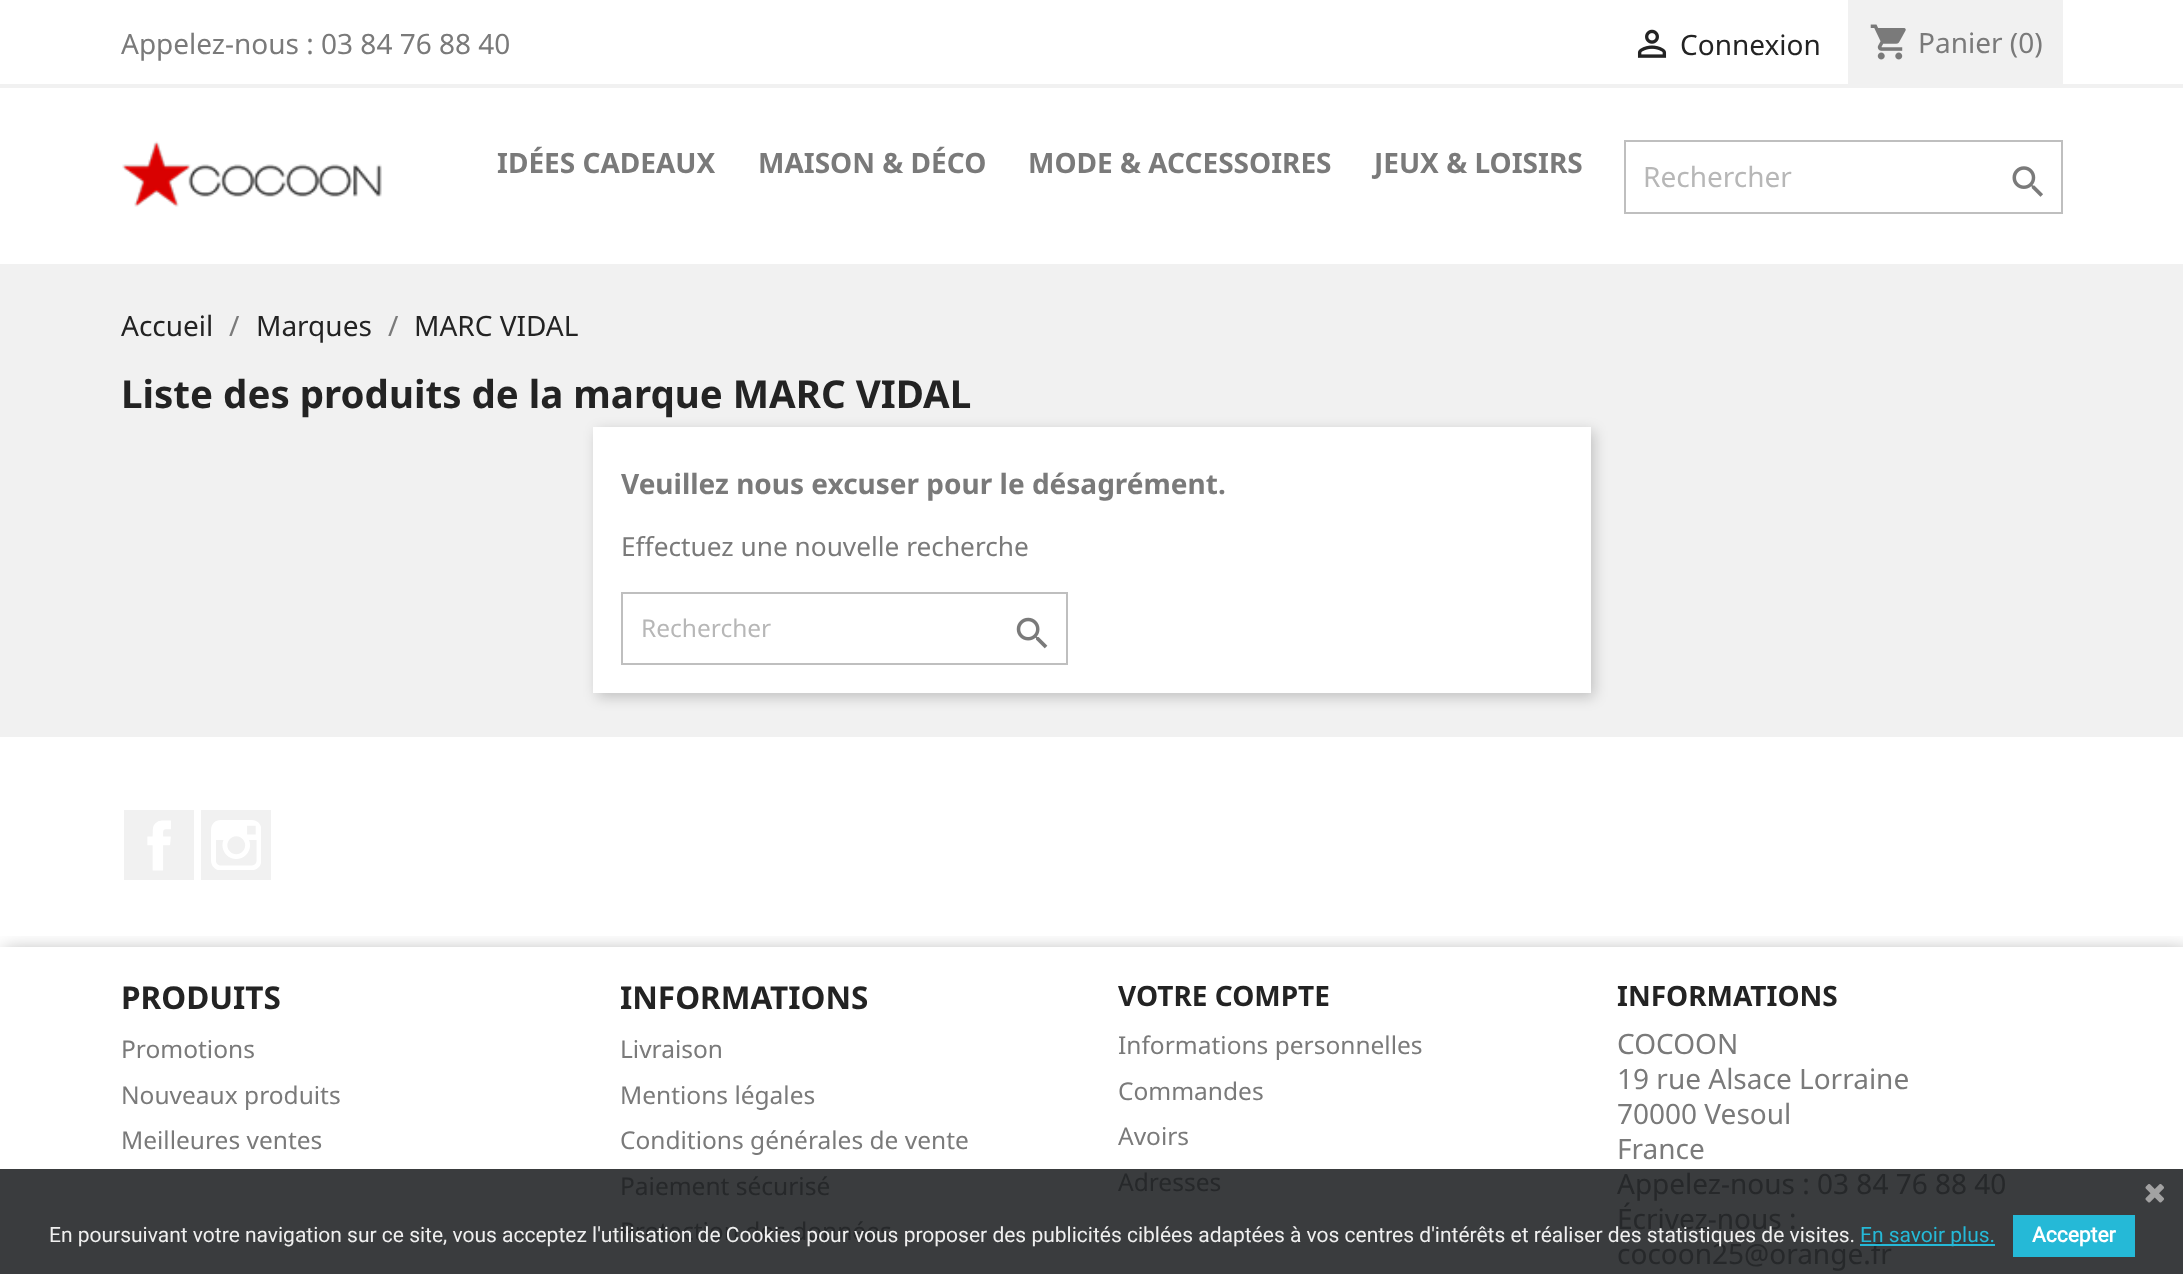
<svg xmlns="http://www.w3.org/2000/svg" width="2183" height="1274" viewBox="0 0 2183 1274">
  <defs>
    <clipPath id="clip1"><path d="M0 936h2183v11H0z"/></clipPath>
  </defs>
  <rect width="100%" height="100%" fill="#fff"/>
  <path d="M0 1169h2183v105H0z" fill="#3a3c3e"/>
  <path d="M0 84h2183v4H0z" fill="#f1f1f1"/>
  <image x="1637" y="29" width="30" height="29" href="img/1.png"/>
  <path d="M1848 0h215v84H1848z" fill="#f1f1f1"/>
  <image x="1870" y="24" width="36" height="36" href="img/2.png"/>
  <image x="122" y="141" width="260" height="66" href="img/3.png"/>
  <path d="M1625 141h437v72H1625z" fill="none" stroke="#bfbfbf" stroke-width="2"/>
  <image x="2012" y="166" width="31" height="31" href="img/4.png"/>
  <path d="M0 264h2183v473H0z" fill="#f1f1f1"/>
  <path d="M597 431h997v266H597z" fill="#00000033" filter="blur(7px)"/>
  <path d="M593 427h998v266H593z" fill="#fff"/>
  <path d="M622 593h445v71H622z" fill="none" stroke="#bfbfbf" stroke-width="2"/>
  <image x="1016" y="617" width="32" height="32" href="img/5.png"/>
  <path d="M124 810h70v70H124z" fill="#f1f1f1"/>
  <image x="147" y="820" width="24" height="51" href="img/6.png"/>
  <path d="M201 810h70v70H201z" fill="#f1f1f1"/>
  <image x="211" y="820" width="50" height="50" href="img/7.png"/>
  <g clip-path="url(#clip1)">
    <path d="M4 950h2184v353H4z" fill="#0000004d" filter="blur(9.5px)"/>
  </g>
  <image x="2145" y="1184" width="19" height="19" href="img/8.png"/>
  <path d="M2013 1215h122v42H2013z" fill="#25b9d7"/>
  <text x="121" y="54" font-family="Noto Sans" font-size="28" fill="#7a7a7a">Appelez-nous : 03 84 76 88 40</text>
  <text x="1680" y="55" font-family="Noto Sans" font-size="28" fill="#232323">Connexion</text>
  <text x="1918" y="53" font-family="Noto Sans" font-size="28" fill="#7a7a7a">Panier (0)</text>
  <g font-family="Noto Sans" font-size="28" font-weight="bold" fill="#7a7a7a">
    <text x="497" y="173">IDÉES CADEAUX</text>
    <text x="758" y="173">MAISON &amp; DÉCO</text>
    <text x="1028" y="173">MODE &amp; ACCESSOIRES</text>
    <text x="1374" y="173">JEUX &amp; LOISIRS</text>
  </g>
  <text x="1643" y="187" font-family="Noto Sans" font-size="28" fill="#b7b7b7">Rechercher</text>
  <text x="121" y="336" font-family="Noto Sans" font-size="28" fill="#232323">Accueil</text>
  <text x="229" y="336" font-family="Noto Sans" font-size="28" fill="#7a7a7a">/</text>
  <text x="256" y="336" font-family="Noto Sans" font-size="28" fill="#232323">Marques</text>
  <text x="388" y="336" font-family="Noto Sans" font-size="28" fill="#7a7a7a">/</text>
  <text x="414" y="336" font-family="Noto Sans" font-size="28" fill="#232323">MARC VIDAL</text>
  <text x="121" y="408" font-family="Noto Sans" font-size="38.5" font-weight="bold" fill="#232323">Liste des produits de la marque MARC VIDAL</text>
  <text x="621" y="494" font-family="Noto Sans" font-size="28" font-weight="bold" fill="#7a7a7a">Veuillez nous excuser pour le désagrément.</text>
  <text x="621" y="556" font-family="Noto Sans" font-size="26.25" fill="#7a7a7a">Effectuez une nouvelle recherche</text>
  <text x="641" y="637" font-family="Noto Sans" font-size="24.5" fill="#b7b7b7">Rechercher</text>
  <text x="121" y="1009" font-family="Noto Sans" font-size="31.5" font-weight="bold" fill="#232323">PRODUITS</text>
  <g font-family="Noto Sans" font-size="24.5" fill="#7a7a7a">
    <text x="121" y="1058">Promotions</text>
    <text x="121" y="1104">Nouveaux produits</text>
    <text x="121" y="1149">Meilleures ventes</text>
  </g>
  <text x="620" y="1009" font-family="Noto Sans" font-size="31.5" font-weight="bold" fill="#232323">INFORMATIONS</text>
  <g font-family="Noto Sans" font-size="24.5" fill="#7a7a7a">
    <text x="620" y="1058">Livraison</text>
    <text x="620" y="1104">Mentions légales</text>
    <text x="620" y="1149">Conditions générales de vente</text>
  </g>
  <g font-family="Noto Sans" font-size="24.5" fill="#26282a">
    <text x="620" y="1195">Paiement sécurisé</text>
    <text x="620" y="1240">Protection des données</text>
  </g>
  <text x="1118" y="1006" font-family="Noto Sans" font-size="28" font-weight="bold" fill="#232323">VOTRE COMPTE</text>
  <g font-family="Noto Sans" font-size="24.5" fill="#7a7a7a">
    <text x="1118" y="1054">Informations personnelles</text>
    <text x="1118" y="1100">Commandes</text>
    <text x="1118" y="1145">Avoirs</text>
  </g>
  <text x="1118" y="1191" font-family="Noto Sans" font-size="24.5" fill="#26282a">Adresses</text>
  <text x="1617" y="1006" font-family="Noto Sans" font-size="28" font-weight="bold" fill="#232323">INFORMATIONS</text>
  <g font-family="Noto Sans" font-size="28" fill="#7a7a7a">
    <text x="1617" y="1054">COCOON</text>
    <text x="1617" y="1089">19 rue Alsace Lorraine</text>
    <text x="1617" y="1124">70000 Vesoul</text>
    <text x="1617" y="1159">France</text>
  </g>
  <g font-family="Noto Sans" font-size="28" fill="#26282a">
    <text x="1617" y="1194">Appelez-nous : 03 84 76 88 40</text>
    <text x="1617" y="1229">Écrivez-nous :</text>
    <text x="1617" y="1264">cocoon25@orange.fr</text>
  </g>
  <text x="49" y="1242" font-family="Roboto" font-size="21" fill="#efefef">En poursuivant votre navigation sur ce site, vous acceptez l'utilisation de Cookies pour vous proposer des publicités ciblées adaptées à vos centres d'intérêts et réaliser des statistiques de visites.</text>
  <path d="M1860 1244h135v2H1860z" fill="#25b9d7"/>
  <text x="1860" y="1242" font-family="Roboto" font-size="21" fill="#25b9d7">En savoir plus.</text>
  <text x="2032" y="1242" font-family="Roboto" font-size="21" font-weight="bold" fill="#fff">Accepter</text>
</svg>
